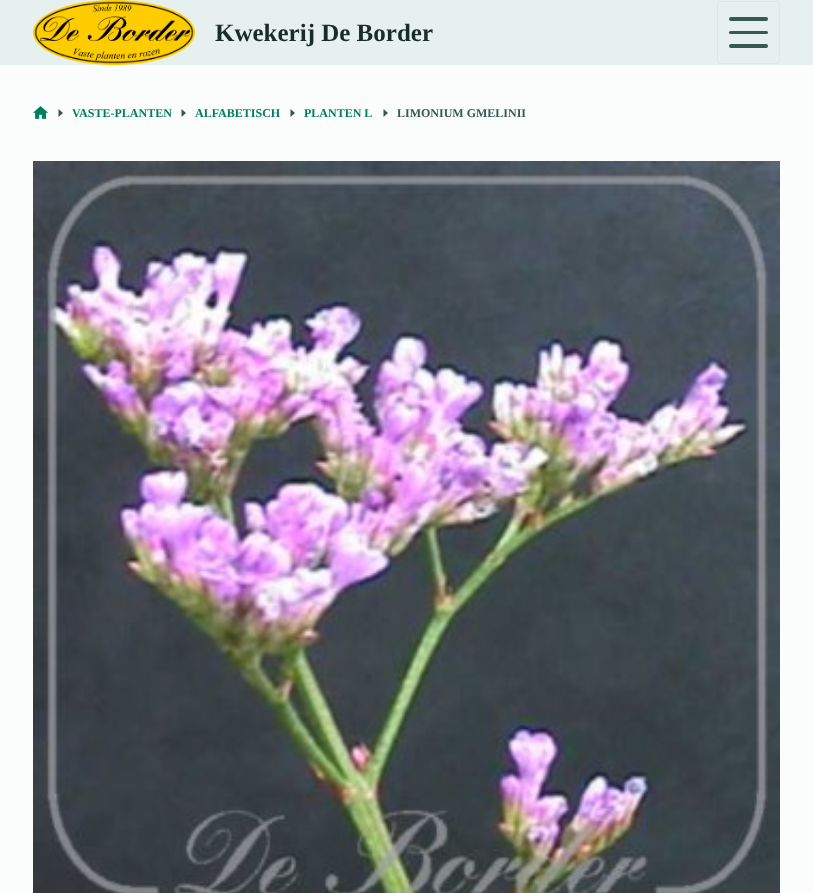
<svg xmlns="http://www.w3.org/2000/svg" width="813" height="893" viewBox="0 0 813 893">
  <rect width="100%" height="100%" fill="#fbfcfc"/>
  <path d="M0 0h813v65H0z" fill="#e6f0ee"/>
  <image x="33" y="0" width="162" height="65" href="img/1.png"/>
  <rect x="717.5" y="1.5" width="62" height="62" rx="2.5" fill="none" stroke="#e1e6eb"/>
  <rect x="729" y="17" width="39" height="4" rx="2" fill="#365951"/>
  <rect x="729" y="31" width="39" height="3" rx="1.5" fill="#365951"/>
  <rect x="729" y="44" width="39" height="4" rx="2" fill="#365951"/>
  <image x="33" y="106" width="15" height="13" href="img/2.png"/>
  <path d="M58.5 109L63 113L58.5 117Z" fill="#365951"/>
  <path d="M181.5 109L186 113L181.5 117Z" fill="#365951"/>
  <path d="M290.5 109L295 113L290.5 117Z" fill="#365951"/>
  <path d="M383.5 109L388 113L383.5 117Z" fill="#365951"/>
  <image x="33" y="161" width="747" height="732" href="img/3.png"/>
  <text x="215" y="41" font-family="Liberation Serif" font-size="25" font-weight="bold" fill="#192c27">Kwekerij De Border</text>
  <g font-family="Liberation Serif" font-size="12" font-weight="bold" fill="#007f5f">
    <text x="72" y="117">VASTE-PLANTEN</text>
    <text x="195" y="117">ALFABETISCH</text>
    <text x="304" y="117">PLANTEN L</text>
  </g>
  <text x="397" y="117" font-family="Liberation Serif" font-size="12" font-weight="bold" fill="#365951">LIMONIUM GMELINII</text>
</svg>
